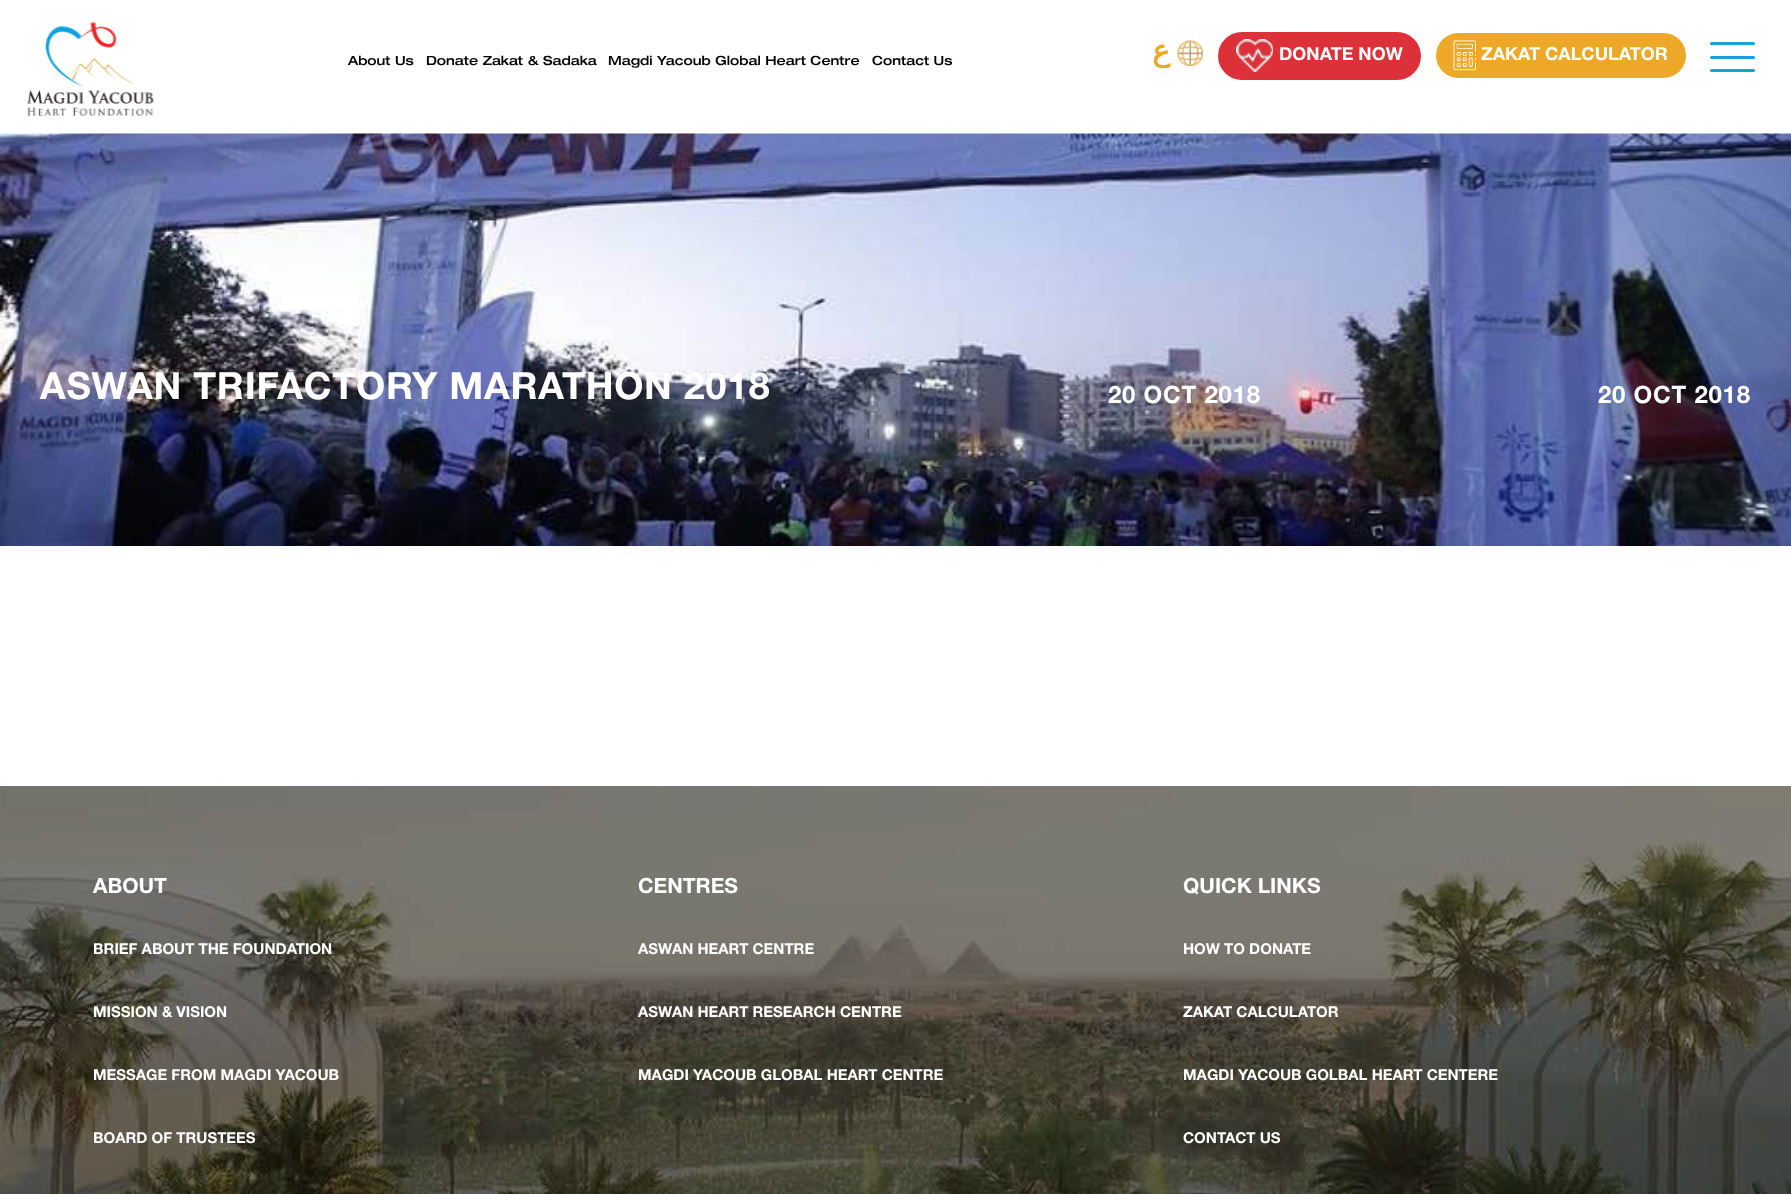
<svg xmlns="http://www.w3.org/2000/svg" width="1791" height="1194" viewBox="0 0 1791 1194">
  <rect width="100%" height="100%" fill="#fff"/>
  <image x="27" y="22" width="128" height="94" href="img/1.png"/>
  <rect x="1710" y="42" width="45" height="3" rx="1.5" fill="#18a2dc"/>
  <rect x="1710" y="56" width="45" height="3" rx="1.5" fill="#18a2dc"/>
  <rect x="1710" y="69" width="45" height="3" rx="1.5" fill="#18a2dc"/>
  <image x="1177" y="40" width="26" height="26" href="img/2.png"/>
  <rect x="1218" y="32" width="203" height="48" rx="24" fill="#dc3139"/>
  <image x="1236" y="39" width="37" height="33" href="img/3.png"/>
  <rect x="1436" y="33" width="250" height="45" rx="22.5" fill="#eda827"/>
  <image x="1453" y="40" width="23" height="31" href="img/4.png"/>
  <image x="0" y="133" width="1791" height="413" href="img/5.png"/>
  <image x="0" y="786" width="1791" height="408" href="img/6.png"/>
  <g font-family="Helvetica Neue" font-size="12.75" font-weight="500" fill="#000">
    <text x="348" y="65">About Us</text>
    <text x="426" y="65">Donate Zakat &amp; Sadaka</text>
    <text x="608" y="65">Magdi Yacoub Global Heart Centre</text>
    <text x="872" y="65">Contact Us</text>
  </g>
  <text x="1170" y="61" font-family="DejaVu Sans" font-size="30" font-weight="bold" direction="rtl" fill="#eda827">ع</text>
  <g font-family="Helvetica Neue" font-size="18" font-weight="bold" fill="#fff">
    <text x="1279" y="60">DONATE NOW</text>
    <text x="1481" y="60">ZAKAT CALCULATOR</text>
  </g>
  <text x="40" y="399" font-family="Helvetica Neue" font-size="37.5" font-weight="bold" letter-spacing="0.75" fill="#fff">ASWAN TRIFACTORY MARATHON 2018</text>
  <g font-family="Helvetica Neue" font-size="24" font-weight="bold" letter-spacing="0.75" fill="#fff">
    <text x="1108" y="403">20 OCT 2018</text>
    <text x="1598" y="403">20 OCT 2018</text>
  </g>
  <text x="93" y="893" font-family="Helvetica Neue" font-size="21" font-weight="bold" fill="#fff">ABOUT</text>
  <g font-family="Helvetica Neue" font-size="15" font-weight="bold" fill="#fff">
    <text x="93" y="954">BRIEF ABOUT THE FOUNDATION</text>
    <text x="93" y="1017">MISSION &amp; VISION</text>
    <text x="93" y="1080">MESSAGE FROM MAGDI YACOUB</text>
    <text x="93" y="1143">BOARD OF TRUSTEES</text>
  </g>
  <text x="638" y="893" font-family="Helvetica Neue" font-size="21" font-weight="bold" fill="#fff">CENTRES</text>
  <g font-family="Helvetica Neue" font-size="15" font-weight="bold" fill="#fff">
    <text x="638" y="954">ASWAN HEART CENTRE</text>
    <text x="638" y="1017">ASWAN HEART RESEARCH CENTRE</text>
    <text x="638" y="1080">MAGDI YACOUB GLOBAL HEART CENTRE</text>
  </g>
  <text x="1183" y="893" font-family="Helvetica Neue" font-size="21" font-weight="bold" fill="#fff">QUICK LINKS</text>
  <g font-family="Helvetica Neue" font-size="15" font-weight="bold" fill="#fff">
    <text x="1183" y="954">HOW TO DONATE</text>
    <text x="1183" y="1017">ZAKAT CALCULATOR</text>
    <text x="1183" y="1080">MAGDI YACOUB GOLBAL HEART CENTERE</text>
    <text x="1183" y="1143">CONTACT US</text>
  </g>
</svg>
